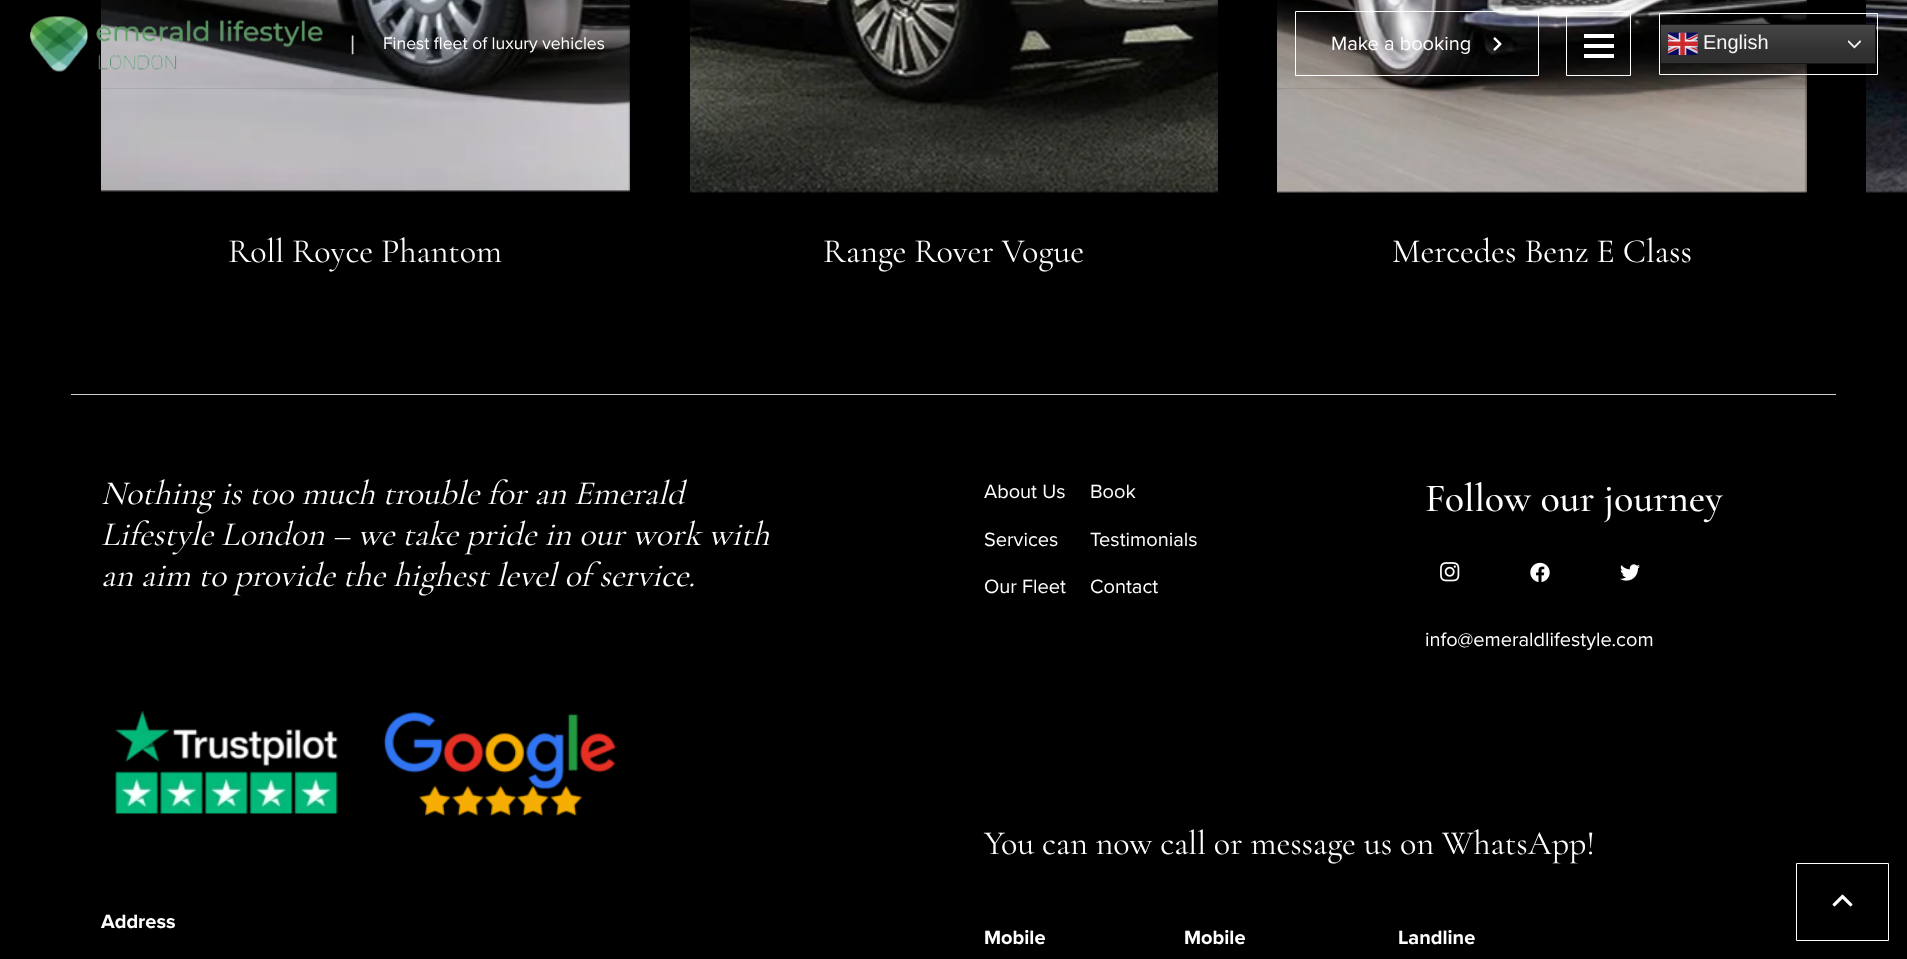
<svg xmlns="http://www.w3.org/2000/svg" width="1907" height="959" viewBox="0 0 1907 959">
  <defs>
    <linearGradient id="g1" gradientUnits="userSpaceOnUse" x1="1768" y1="24" x2="1768" y2="64"><stop offset="0" stop-color="#474747"/><stop offset="0.7" stop-color="#303030"/></linearGradient>
  </defs>
  <rect width="100%" height="100%" fill="#000"/>
  <image x="1866" y="0" width="41" height="193" href="img/5.png"/>
  <image x="101" y="0" width="529" height="192" href="img/6.png"/>
  <image x="690" y="0" width="528" height="193" href="img/7.png"/>
  <image x="1277" y="0" width="530" height="193" href="img/8.png"/>
  <path d="M0 88V89H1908V1V88Z" fill="#00000014"/>
  <image x="30" y="16" width="293" height="56" href="img/1.png"/>
  <image x="1493" y="37" width="9" height="14" href="img/2.png"/>
  <path d="M1295.5 11.5h243v64H1295.5z" fill="none" stroke="#fff"/>
  <path d="M1566.5 11.5h64v64H1566.5z" fill="none" stroke="#fff"/>
  <path d="M1584 44h30v4H1584z" fill="#fff"/>
  <path d="M1584 34h30v4H1584z" fill="#fff"/>
  <path d="M1584 54h30v4H1584z" fill="#fff"/>
  <path d="M1659.5 13.5h218v61H1659.5z" fill="none" stroke="#fff"/>
  <path d="M1661 25h214v38H1661z" fill="url(#g1)"/>
  <path d="M1660.5 24.5h215v39H1660.5z" fill="none" stroke="#161616"/>
  <image x="1668" y="32" width="30" height="23" href="img/3.png"/>
  <image x="1848" y="40" width="13" height="9" href="img/4.png"/>
  <path d="M71 394h1765v1H71z" fill="#d0d1d2"/>
  <image x="115" y="711" width="223" height="103" href="img/9.png"/>
  <image x="383" y="712" width="234" height="104" href="img/10.png"/>
  <image x="1440" y="562" width="20" height="20" href="img/11.png"/>
  <image x="1530" y="562" width="20" height="20" href="img/12.png"/>
  <image x="1620" y="564" width="20" height="17" href="img/13.png"/>
  <image x="1832" y="894" width="21" height="13" href="img/14.png"/>
  <path d="M1796.5 863.5h92v77H1796.5z" fill="none" stroke="#fff"/>
  <text x="350" y="50" font-family="Liberation Sans" font-size="20" fill="#d0d1d2">|</text>
  <text x="383" y="49" font-family="Proxima Nova" font-size="17.5" fill="#fff">Finest fleet of luxury vehicles</text>
  <text x="1331" y="50" font-family="Proxima Nova" font-size="20" fill="#fff">Make a booking</text>
  <text x="1703" y="49" font-family="Liberation Sans" font-size="20" fill="#f7f7f7">English</text>
  <g font-family="Cormorant Garamond" font-size="34" fill="#fff">
    <text x="228" y="262">Roll Royce Phantom</text>
    <text x="823" y="262">Range Rover Vogue</text>
    <text x="1392" y="262">Mercedes Benz E Class</text>
  </g>
  <g font-family="Cormorant Garamond" font-size="34" font-style="italic" fill="#fff">
    <text x="101" y="504">Nothing is too much trouble for an Emerald</text>
    <text x="101" y="545">Lifestyle London – we take pride in our work with</text>
    <text x="101" y="586">an aim to provide the highest level of service.</text>
  </g>
  <g font-family="Proxima Nova" font-size="20" fill="#fff">
    <text x="984" y="498">About Us</text>
    <text x="984" y="546">Services</text>
    <text x="984" y="593">Our Fleet</text>
    <text x="1090" y="498">Book</text>
    <text x="1090" y="546">Testimonials</text>
    <text x="1090" y="593">Contact</text>
  </g>
  <text x="1425" y="511" font-family="Cormorant Garamond" font-size="40" font-weight="500" fill="#fff">Follow our journey</text>
  <text x="1425" y="646" font-family="Proxima Nova" font-size="20" fill="#fff">info@emeraldlifestyle.com</text>
  <text x="101" y="928" font-family="Proxima Nova" font-size="20" font-weight="bold" fill="#fff">Address</text>
  <text x="984" y="854" font-family="Cormorant Garamond" font-size="34" fill="#fff">You can now call or message us on WhatsApp!</text>
  <g font-family="Proxima Nova" font-size="20" font-weight="bold" fill="#fff">
    <text x="984" y="944">Mobile</text>
    <text x="1184" y="944">Mobile</text>
    <text x="1398" y="944">Landline</text>
  </g>
</svg>
